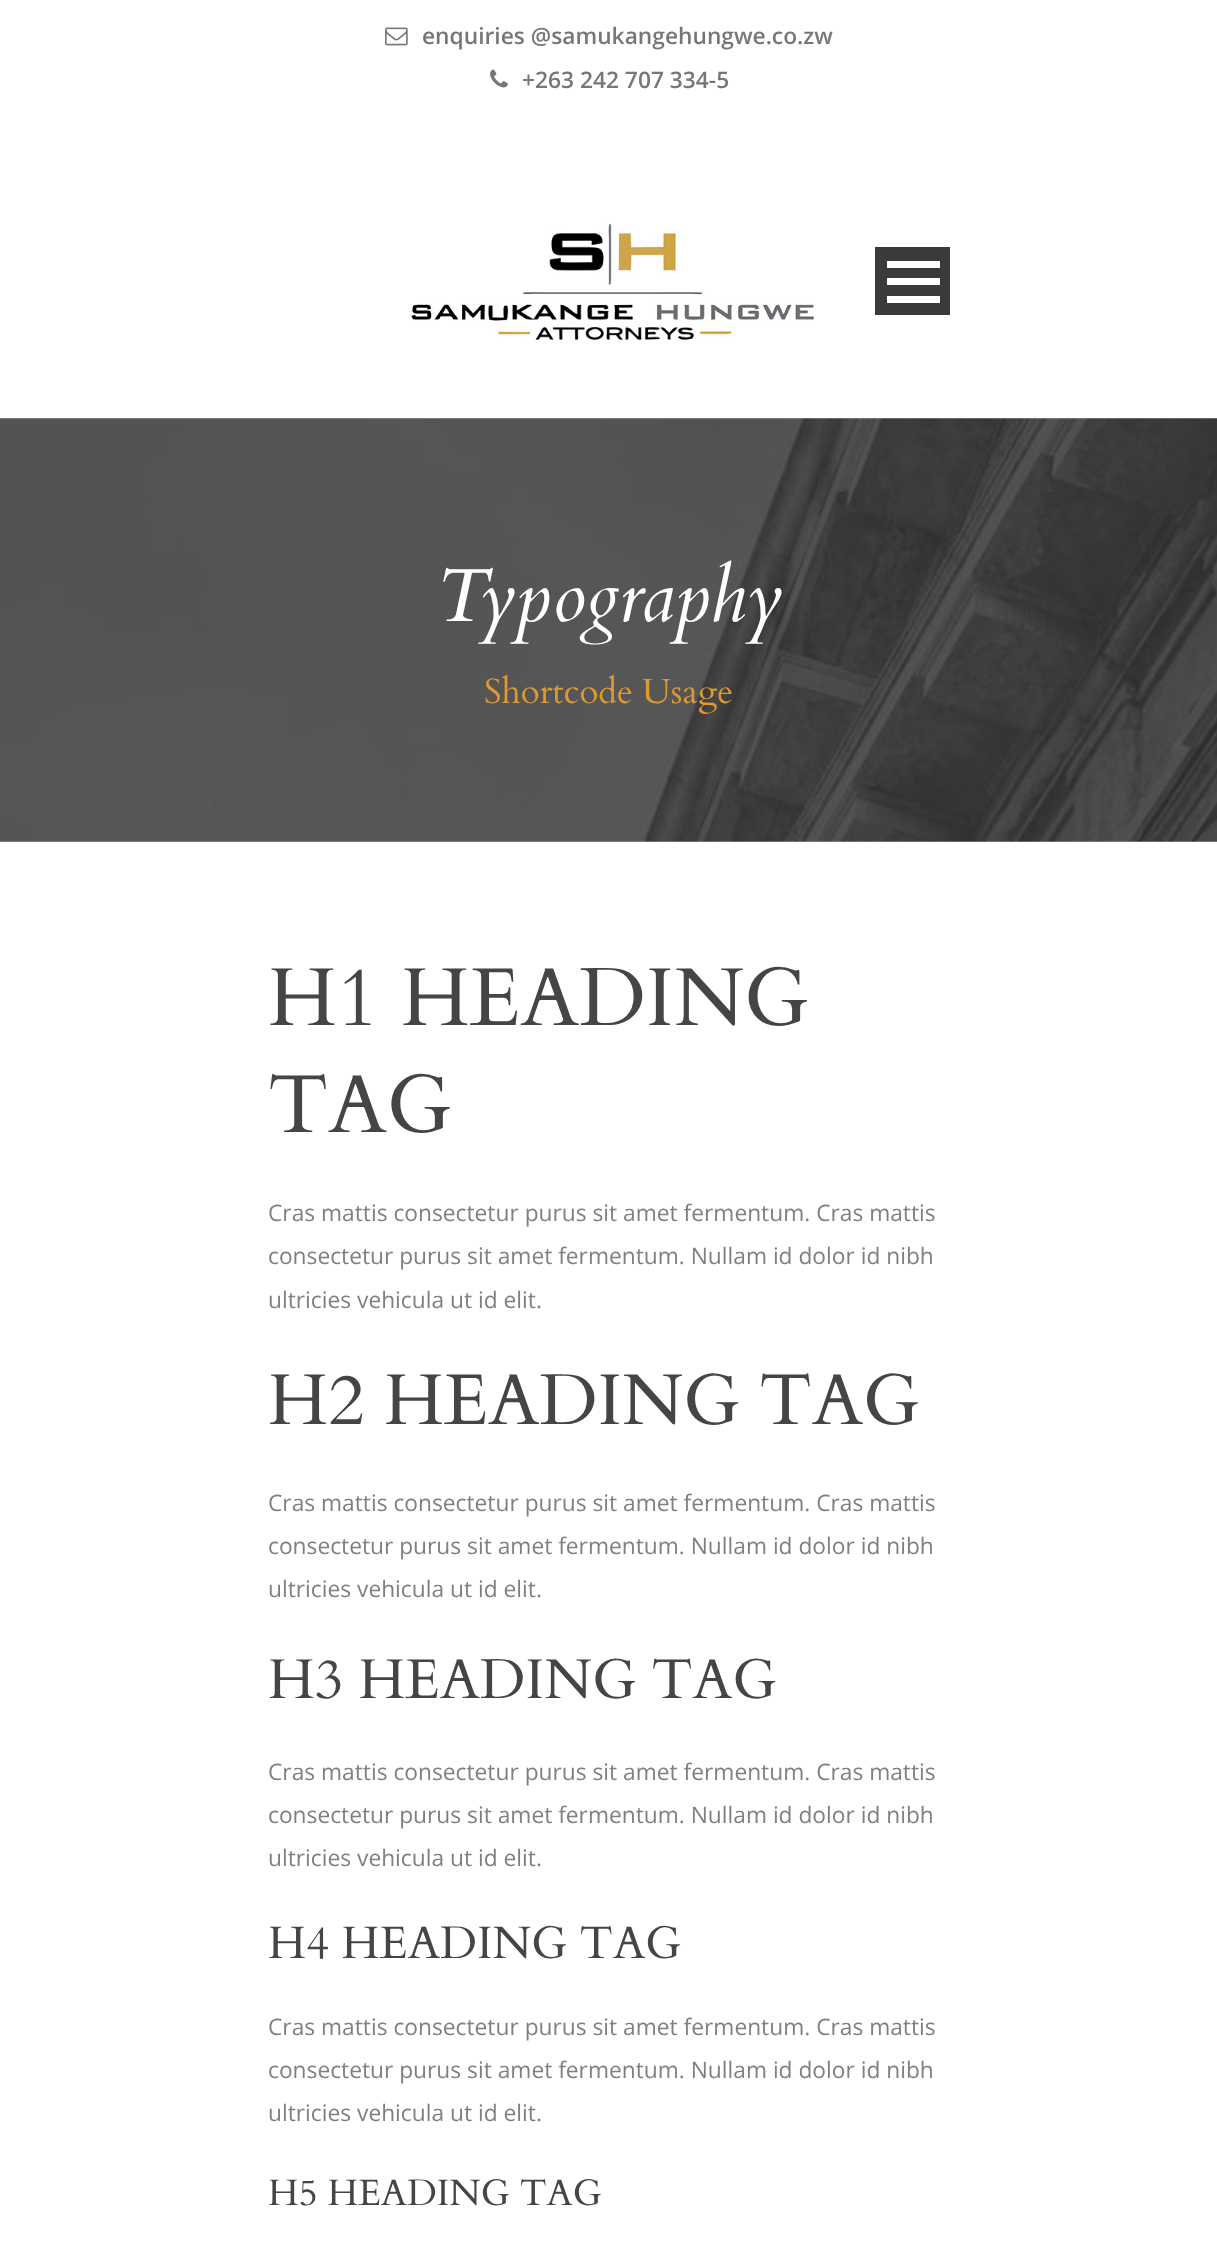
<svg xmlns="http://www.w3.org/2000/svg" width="1217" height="2267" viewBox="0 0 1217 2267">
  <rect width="100%" height="100%" fill="#fff"/>
  <image x="385" y="27" width="23" height="19" href="img/1.png"/>
  <image x="490" y="69" width="18" height="19" href="img/2.png"/>
  <image x="411" y="223" width="403" height="117" href="img/3.png"/>
  <path d="M875 247h75v68H875z" fill="#3a3a3a"/>
  <path d="M887 296h53v7H887z" fill="#fff"/>
  <path d="M887 278h53v7H887z" fill="#fff"/>
  <path d="M887 261h53v7H887z" fill="#fff"/>
  <image x="0" y="418" width="1217" height="424" href="img/4.png"/>
  <g font-family="Open Sans" font-size="22.75" font-weight="600" fill="#777">
    <text x="422" y="44">enquiries @samukangehungwe.co.zw</text>
    <text x="522" y="88">+263 242 707 334-5</text>
  </g>
  <text x="436" y="621" font-family="Cardo" font-size="75.25" font-style="italic" fill="#fff">Typography</text>
  <text x="484" y="703" font-family="Cardo" font-size="35" fill="#d93">Shortcode Usage</text>
  <g font-family="Cardo" font-size="82.25" fill="#454545">
    <text x="268" y="1025">H1 HEADING</text>
    <text x="268" y="1132">TAG</text>
  </g>
  <g font-family="Open Sans" font-size="22.75" fill="#808080">
    <text x="268" y="1221">Cras mattis consectetur purus sit amet fermentum. Cras mattis</text>
    <text x="268" y="1264">consectetur purus sit amet fermentum. Nullam id dolor id nibh</text>
    <text x="268" y="1308">ultricies vehicula ut id elit.</text>
  </g>
  <text x="268" y="1424" font-family="Cardo" font-size="71.75" fill="#454545">H2 HEADING TAG</text>
  <g font-family="Open Sans" font-size="22.75" fill="#808080">
    <text x="268" y="1511">Cras mattis consectetur purus sit amet fermentum. Cras mattis</text>
    <text x="268" y="1554">consectetur purus sit amet fermentum. Nullam id dolor id nibh</text>
    <text x="268" y="1597">ultricies vehicula ut id elit.</text>
  </g>
  <text x="268" y="1698" font-family="Cardo" font-size="56" fill="#454545">H3 HEADING TAG</text>
  <g font-family="Open Sans" font-size="22.75" fill="#808080">
    <text x="268" y="1780">Cras mattis consectetur purus sit amet fermentum. Cras mattis</text>
    <text x="268" y="1823">consectetur purus sit amet fermentum. Nullam id dolor id nibh</text>
    <text x="268" y="1866">ultricies vehicula ut id elit.</text>
  </g>
  <text x="268" y="1958" font-family="Cardo" font-size="45.5" fill="#454545">H4 HEADING TAG</text>
  <g font-family="Open Sans" font-size="22.75" fill="#808080">
    <text x="268" y="2035">Cras mattis consectetur purus sit amet fermentum. Cras mattis</text>
    <text x="268" y="2078">consectetur purus sit amet fermentum. Nullam id dolor id nibh</text>
    <text x="268" y="2121">ultricies vehicula ut id elit.</text>
  </g>
  <text x="268" y="2205" font-family="Cardo" font-size="36.75" fill="#454545">H5 HEADING TAG</text>
</svg>
